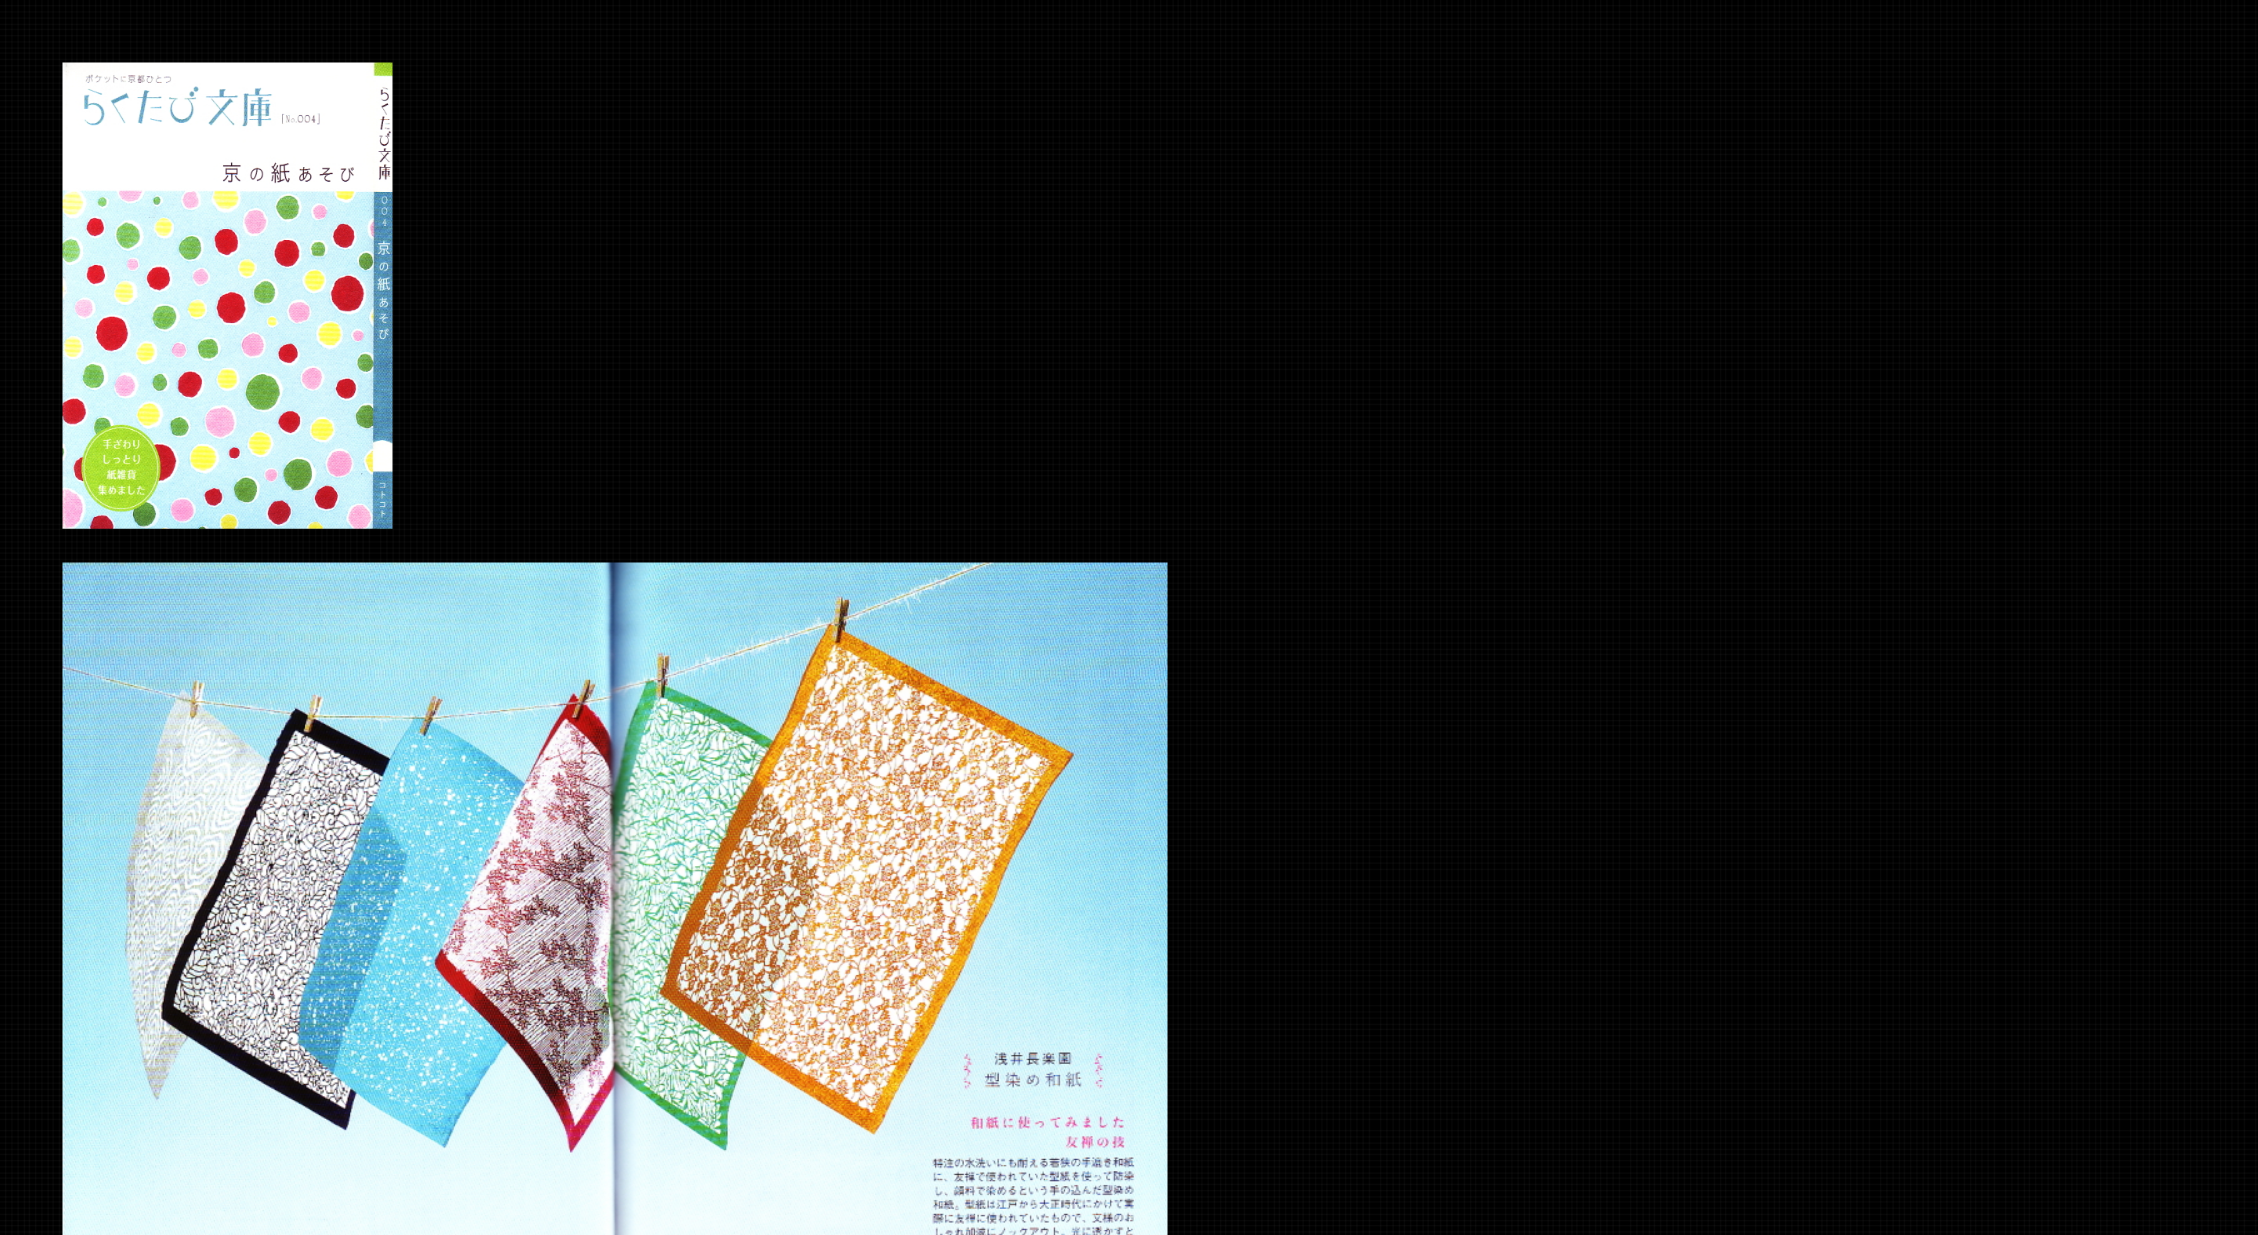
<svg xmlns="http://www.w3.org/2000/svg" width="2258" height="1235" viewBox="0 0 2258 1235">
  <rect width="100%" height="100%" fill="#fff"/>
  <image x="0" y="0" width="2258" height="1235" href="img/1.png"/>
  <image x="62" y="62" width="331" height="467" href="img/2.png"/>
  <image x="62" y="562" width="1106" height="673" href="img/3.png"/>
</svg>
